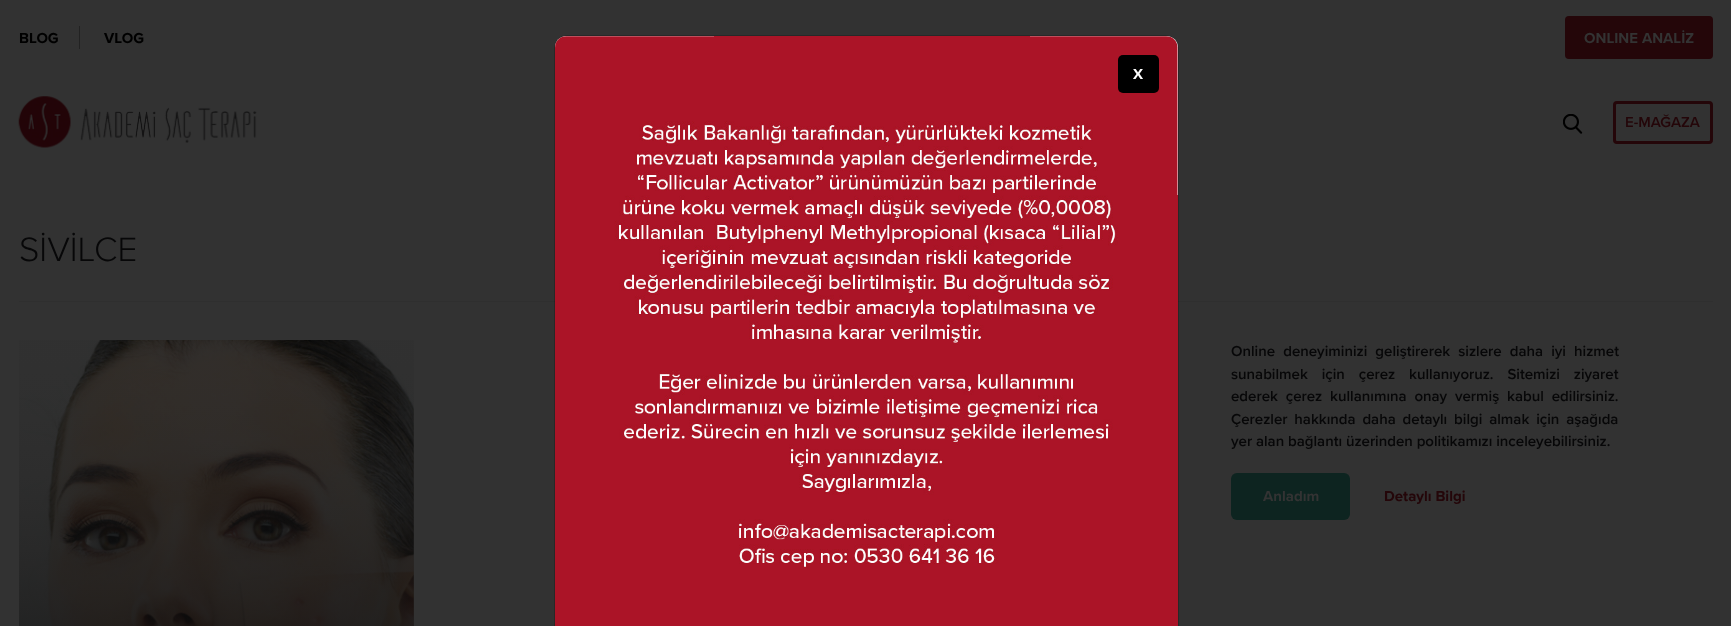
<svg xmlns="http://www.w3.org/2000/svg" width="1731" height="626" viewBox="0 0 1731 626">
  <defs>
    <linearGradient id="g1" gradientUnits="userSpaceOnUse" x1="216" y1="340" x2="216" y2="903"><stop offset="0" stop-color="#333" stop-opacity="0.1"/><stop offset="0.9" stop-color="#000" stop-opacity="0.8"/></linearGradient>
  </defs>
  <rect width="100%" height="100%" fill="#323232"/>
  <path d="M79 26h1v23H79z" fill="#222"/>
  <rect x="1565" y="16" width="148" height="43" rx="4" fill="#240609"/>
  <image x="18" y="96" width="239" height="52" href="img/1.png"/>
  <image x="1563" y="114" width="20" height="20" href="img/2.png"/>
  <rect x="1614.5" y="102.5" width="97" height="40" rx="2.5" fill="none" stroke="#240609" stroke-width="3"/>
  <path d="M19 301h1694v1H19z" fill="#2f2f2f"/>
  <path d="M566 36H1167C1173 36 1178 41 1178 47V626H555V47C555 41 560 36 566 36Z" fill="#fff"/>
  <rect x="554.5" y="35.5" width="624" height="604" rx="12.5" fill="none" stroke="#00000033"/>
  <image x="555" y="36" width="623" height="590" href="img/3.png"/>
  <rect x="1118" y="55" width="41" height="38" rx="5" fill="#000"/>
  <image x="19" y="340" width="395" height="286" href="img/4.png"/>
  <path d="M19 340h395v286H19z" fill="url(#g1)"/>
  <rect x="1231" y="473" width="119" height="47" rx="6" fill="#0d2420"/>
  <g font-family="Proxima Nova" font-size="15" font-weight="bold" fill="#000">
    <text x="19" y="43">BLOG</text>
    <text x="104" y="43">VLOG</text>
  </g>
  <text x="1584" y="43" font-family="Proxima Nova" font-size="15" font-weight="bold" fill="#333">ONLINE ANALİZ</text>
  <text x="1625" y="127" font-family="Proxima Nova" font-size="15" font-weight="600" fill="#240609">E-MAĞAZA</text>
  <text x="1133" y="79" font-family="Proxima Nova" font-size="15" font-weight="bold" fill="#fff">X</text>
  <text x="19" y="261" font-family="Proxima Nova" font-size="35" font-weight="300" fill="#070708">SİVİLCE</text>
  <g font-family="Proxima Nova" font-size="15" font-weight="600" fill="#070708">
    <text x="1231" y="356" word-spacing="4.25">Online deneyiminizi geliştirerek sizlere daha iyi hizmet</text>
    <text x="1231" y="379" word-spacing="10">sunabilmek için çerez kullanıyoruz. Sitemizi ziyaret</text>
    <text x="1231" y="401" word-spacing="4">ederek çerez kullanımına onay vermiş kabul edilirsiniz.</text>
    <text x="1231" y="424" word-spacing="3">Çerezler hakkında daha detaylı bilgi almak için aşağıda</text>
    <text x="1231" y="446">yer alan bağlantı üzerinden politikamızı inceleyebilirsiniz.</text>
  </g>
  <text x="1263" y="501" font-family="Proxima Nova" font-size="15" font-weight="bold" fill="#333">Anladım</text>
  <text x="1384" y="501" font-family="Proxima Nova" font-size="15" font-weight="bold" fill="#240609">Detaylı Bilgi</text>
</svg>
